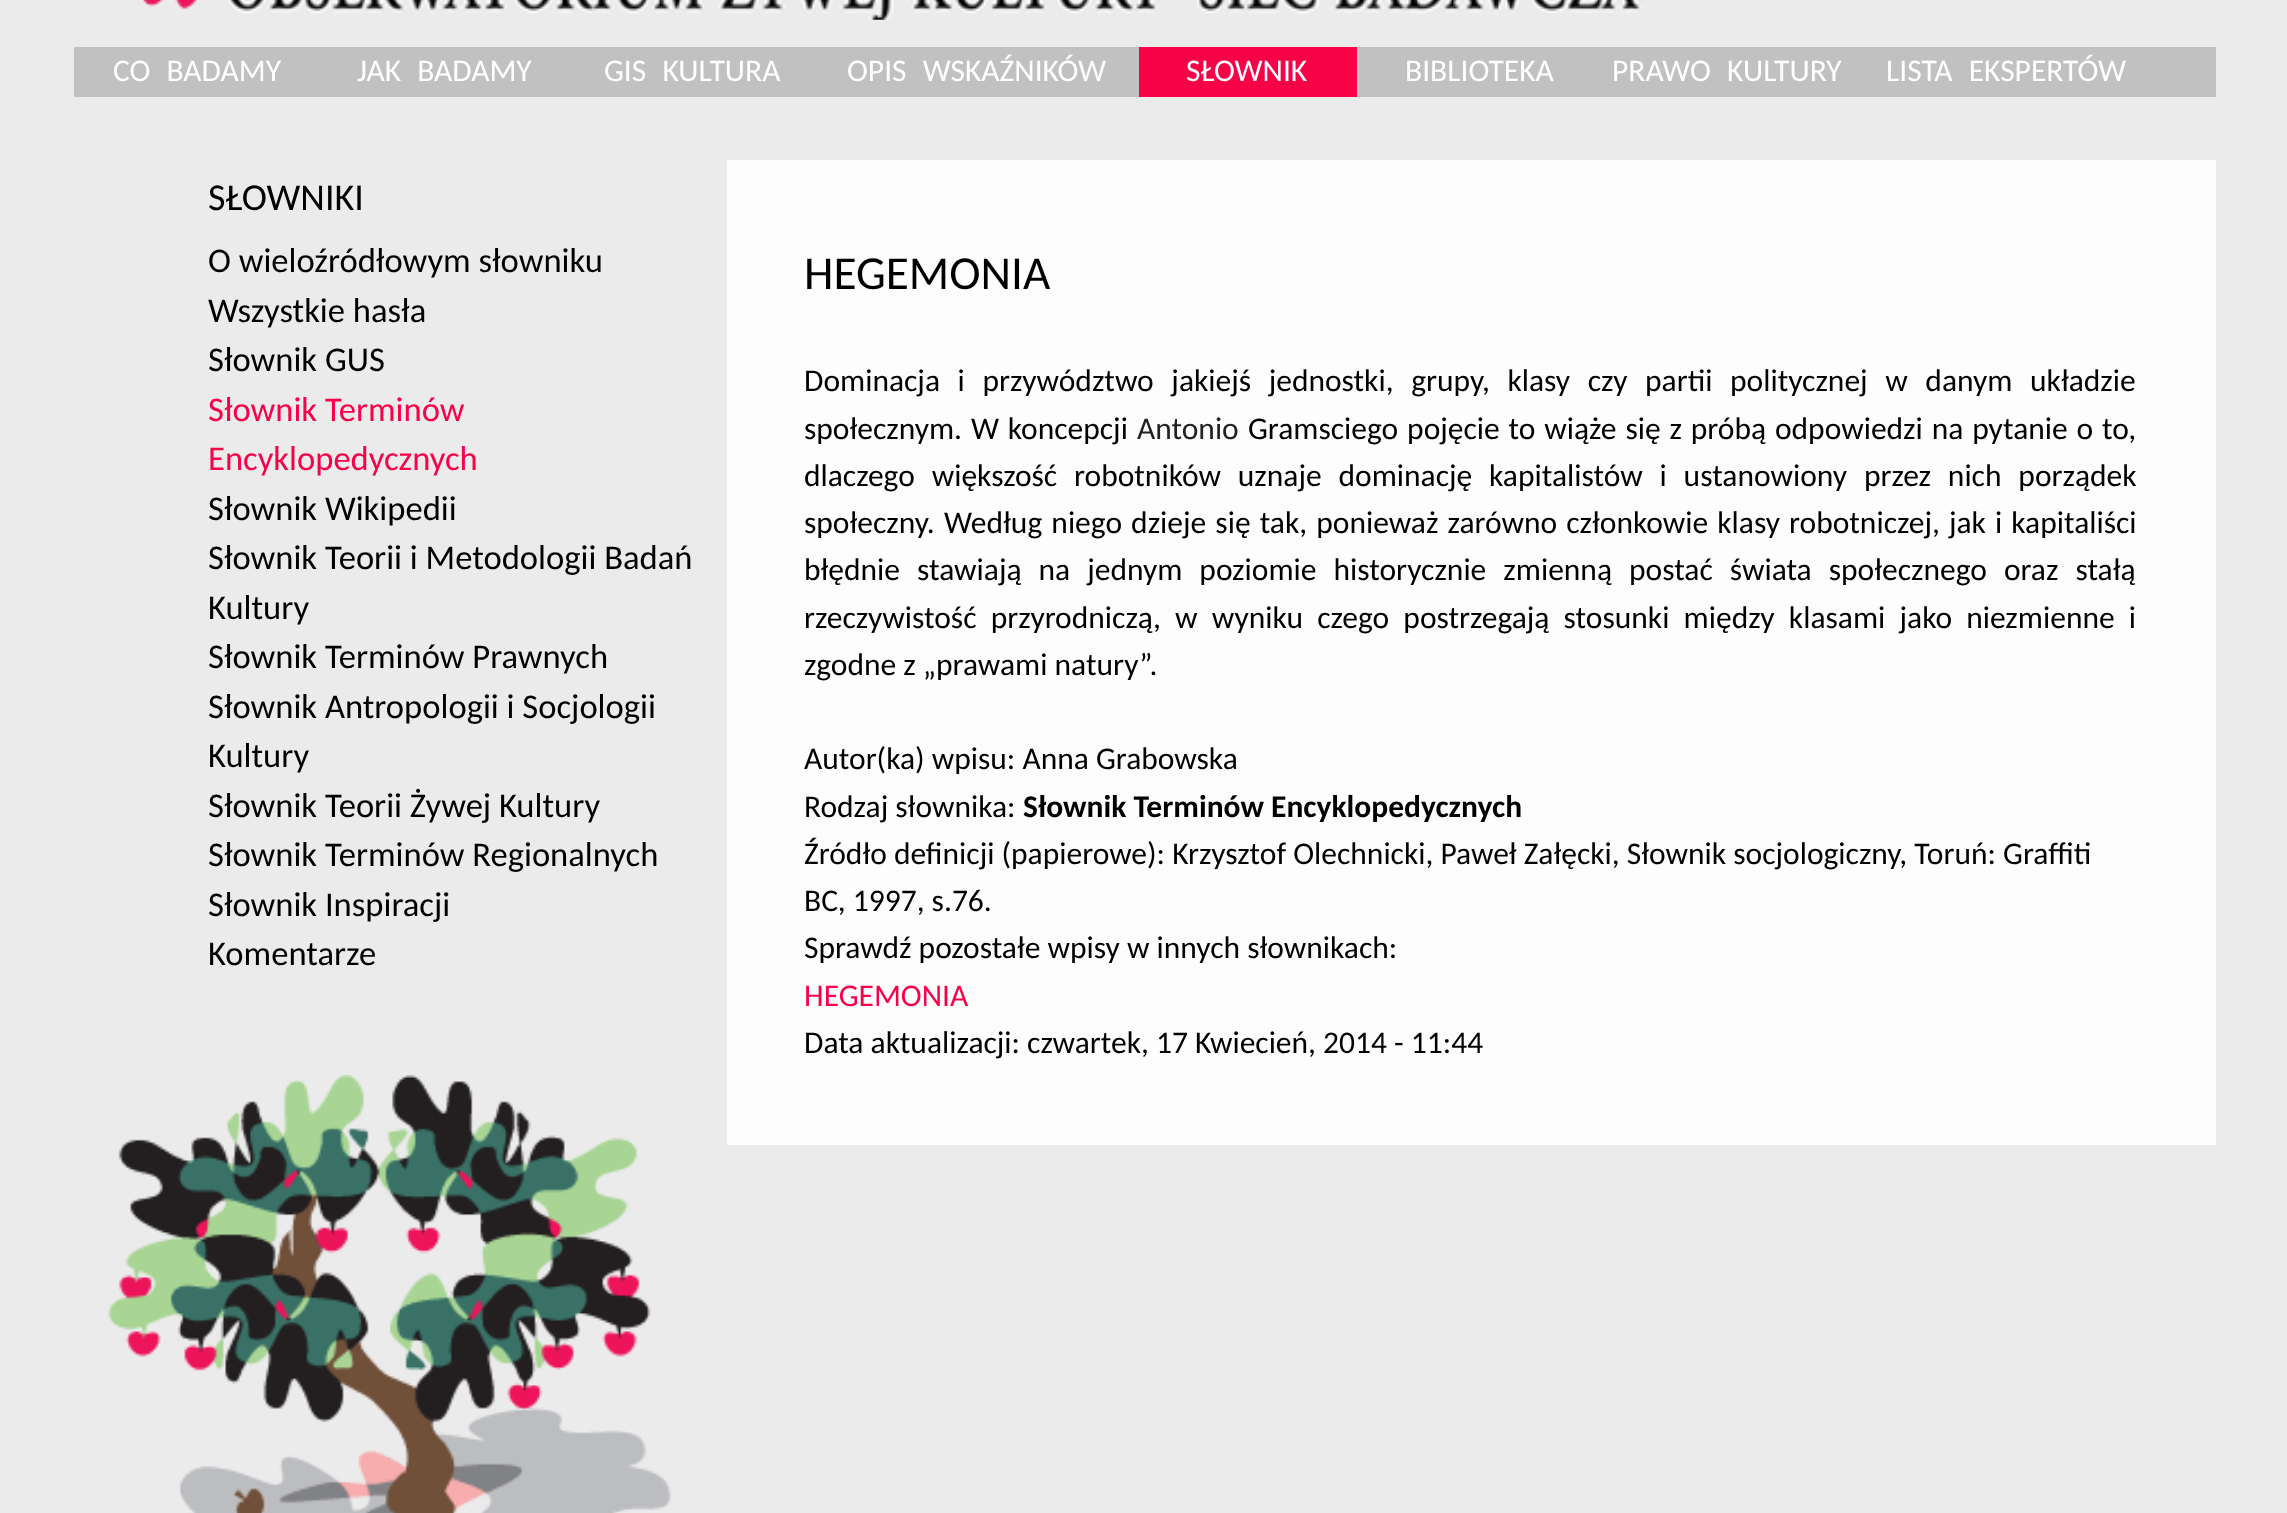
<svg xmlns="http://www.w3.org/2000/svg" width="2287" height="1513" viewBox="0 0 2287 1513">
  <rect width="100%" height="100%" fill="#ebebeb"/>
  <image x="143" y="0" width="1500" height="20" href="img/1.png"/>
  <image x="107" y="1075" width="564" height="438" href="img/2.png"/>
  <path d="M74 47h2142v50H74z" fill="#c1c1c1"/>
  <path d="M1139 47h218v50H1139z" fill="#f70247"/>
  <path d="M727 160h1489v985H727z" fill="#fdfdfd"/>
  <g font-family="Carlito" font-size="31.5" fill="#fff">
    <text x="113" y="81" word-spacing="9">CO BADAMY</text>
    <text x="357" y="81" word-spacing="9">JAK BADAMY</text>
    <text x="604" y="81" word-spacing="9">GIS KULTURA</text>
    <text x="847" y="81" word-spacing="9">OPIS WSKAŹNIKÓW</text>
    <text x="1186" y="81">SŁOWNIK</text>
    <text x="1405" y="81">BIBLIOTEKA</text>
    <text x="1612" y="81" word-spacing="9">PRAWO KULTURY</text>
    <text x="1886" y="81" word-spacing="9">LISTA EKSPERTÓW</text>
  </g>
  <text x="208" y="210" font-family="Carlito" font-size="38" fill="#000">SŁOWNIKI</text>
  <g font-family="Carlito" font-size="34.6" fill="#000">
    <text x="208" y="272">O wieloźródłowym słowniku</text>
    <text x="208" y="322">Wszystkie hasła</text>
    <text x="208" y="371">Słownik GUS</text>
  </g>
  <g font-family="Carlito" font-size="34.6" fill="#f70247">
    <text x="208" y="421">Słownik Terminów</text>
    <text x="208" y="470">Encyklopedycznych</text>
  </g>
  <g font-family="Carlito" font-size="34.6" fill="#000">
    <text x="208" y="520">Słownik Wikipedii</text>
    <text x="208" y="569">Słownik Teorii i Metodologii Badań</text>
    <text x="208" y="619">Kultury</text>
    <text x="208" y="668">Słownik Terminów Prawnych</text>
    <text x="208" y="718">Słownik Antropologii i Socjologii</text>
    <text x="208" y="767">Kultury</text>
    <text x="208" y="817">Słownik Teorii Żywej Kultury</text>
    <text x="208" y="866">Słownik Terminów Regionalnych</text>
    <text x="208" y="916">Słownik Inspiracji</text>
    <text x="208" y="965">Komentarze</text>
  </g>
  <text x="804" y="289" font-family="Carlito" font-size="47.25" fill="#000">HEGEMONIA</text>
  <g font-family="Carlito" font-size="31.5" fill="#000">
    <text x="804" y="391" word-spacing="10.5">Dominacja i przywództwo jakiejś jednostki, grupy, klasy czy partii politycznej w danym układzie</text>
    <text x="804" y="439" word-spacing="1.75">społecznym. W koncepcji</text>
  </g>
  <text x="1137" y="439" font-family="Carlito" font-size="31.5" fill="#222">Antonio</text>
  <g font-family="Carlito" font-size="31.5" fill="#000">
    <text x="1248" y="439" word-spacing="1.75">Gramsciego pojęcie to wiąże się z próbą odpowiedzi na pytanie o to,</text>
    <text x="804" y="486" word-spacing="9.75">dlaczego większość robotników uznaje dominację kapitalistów i ustanowiony przez nich porządek</text>
    <text x="804" y="533" word-spacing="2">społeczny. Według niego dzieje się tak, ponieważ zarówno członkowie klasy robotniczej, jak i kapitaliści</text>
    <text x="804" y="580" word-spacing="9.9">błędnie stawiają na jednym poziomie historycznie zmienną postać świata społecznego oraz stałą</text>
    <text x="804" y="628" word-spacing="7.1">rzeczywistość przyrodniczą, w wyniku czego postrzegają stosunki między klasami jako niezmienne i</text>
    <text x="804" y="675">zgodne z „prawami natury”.</text>
    <text x="804" y="769">Autor(ka) wpisu: Anna Grabowska</text>
    <text x="804" y="817">Rodzaj słownika:</text>
  </g>
  <text x="1023" y="817" font-family="Carlito" font-size="31.5" font-weight="bold" fill="#000">Słownik Terminów Encyklopedycznych</text>
  <g font-family="Carlito" font-size="31.5" fill="#000">
    <text x="804" y="864">Źródło definicji (papierowe): Krzysztof Olechnicki, Paweł Załęcki, Słownik socjologiczny, Toruń: Graffiti</text>
    <text x="804" y="911">BC, 1997, s.76.</text>
    <text x="804" y="958">Sprawdź pozostałe wpisy w innych słownikach:</text>
  </g>
  <text x="804" y="1006" font-family="Carlito" font-size="31.5" fill="#f70247">HEGEMONIA</text>
  <text x="804" y="1053" font-family="Carlito" font-size="31.5" fill="#000">Data aktualizacji: czwartek, 17 Kwiecień, 2014 - 11:44</text>
</svg>
